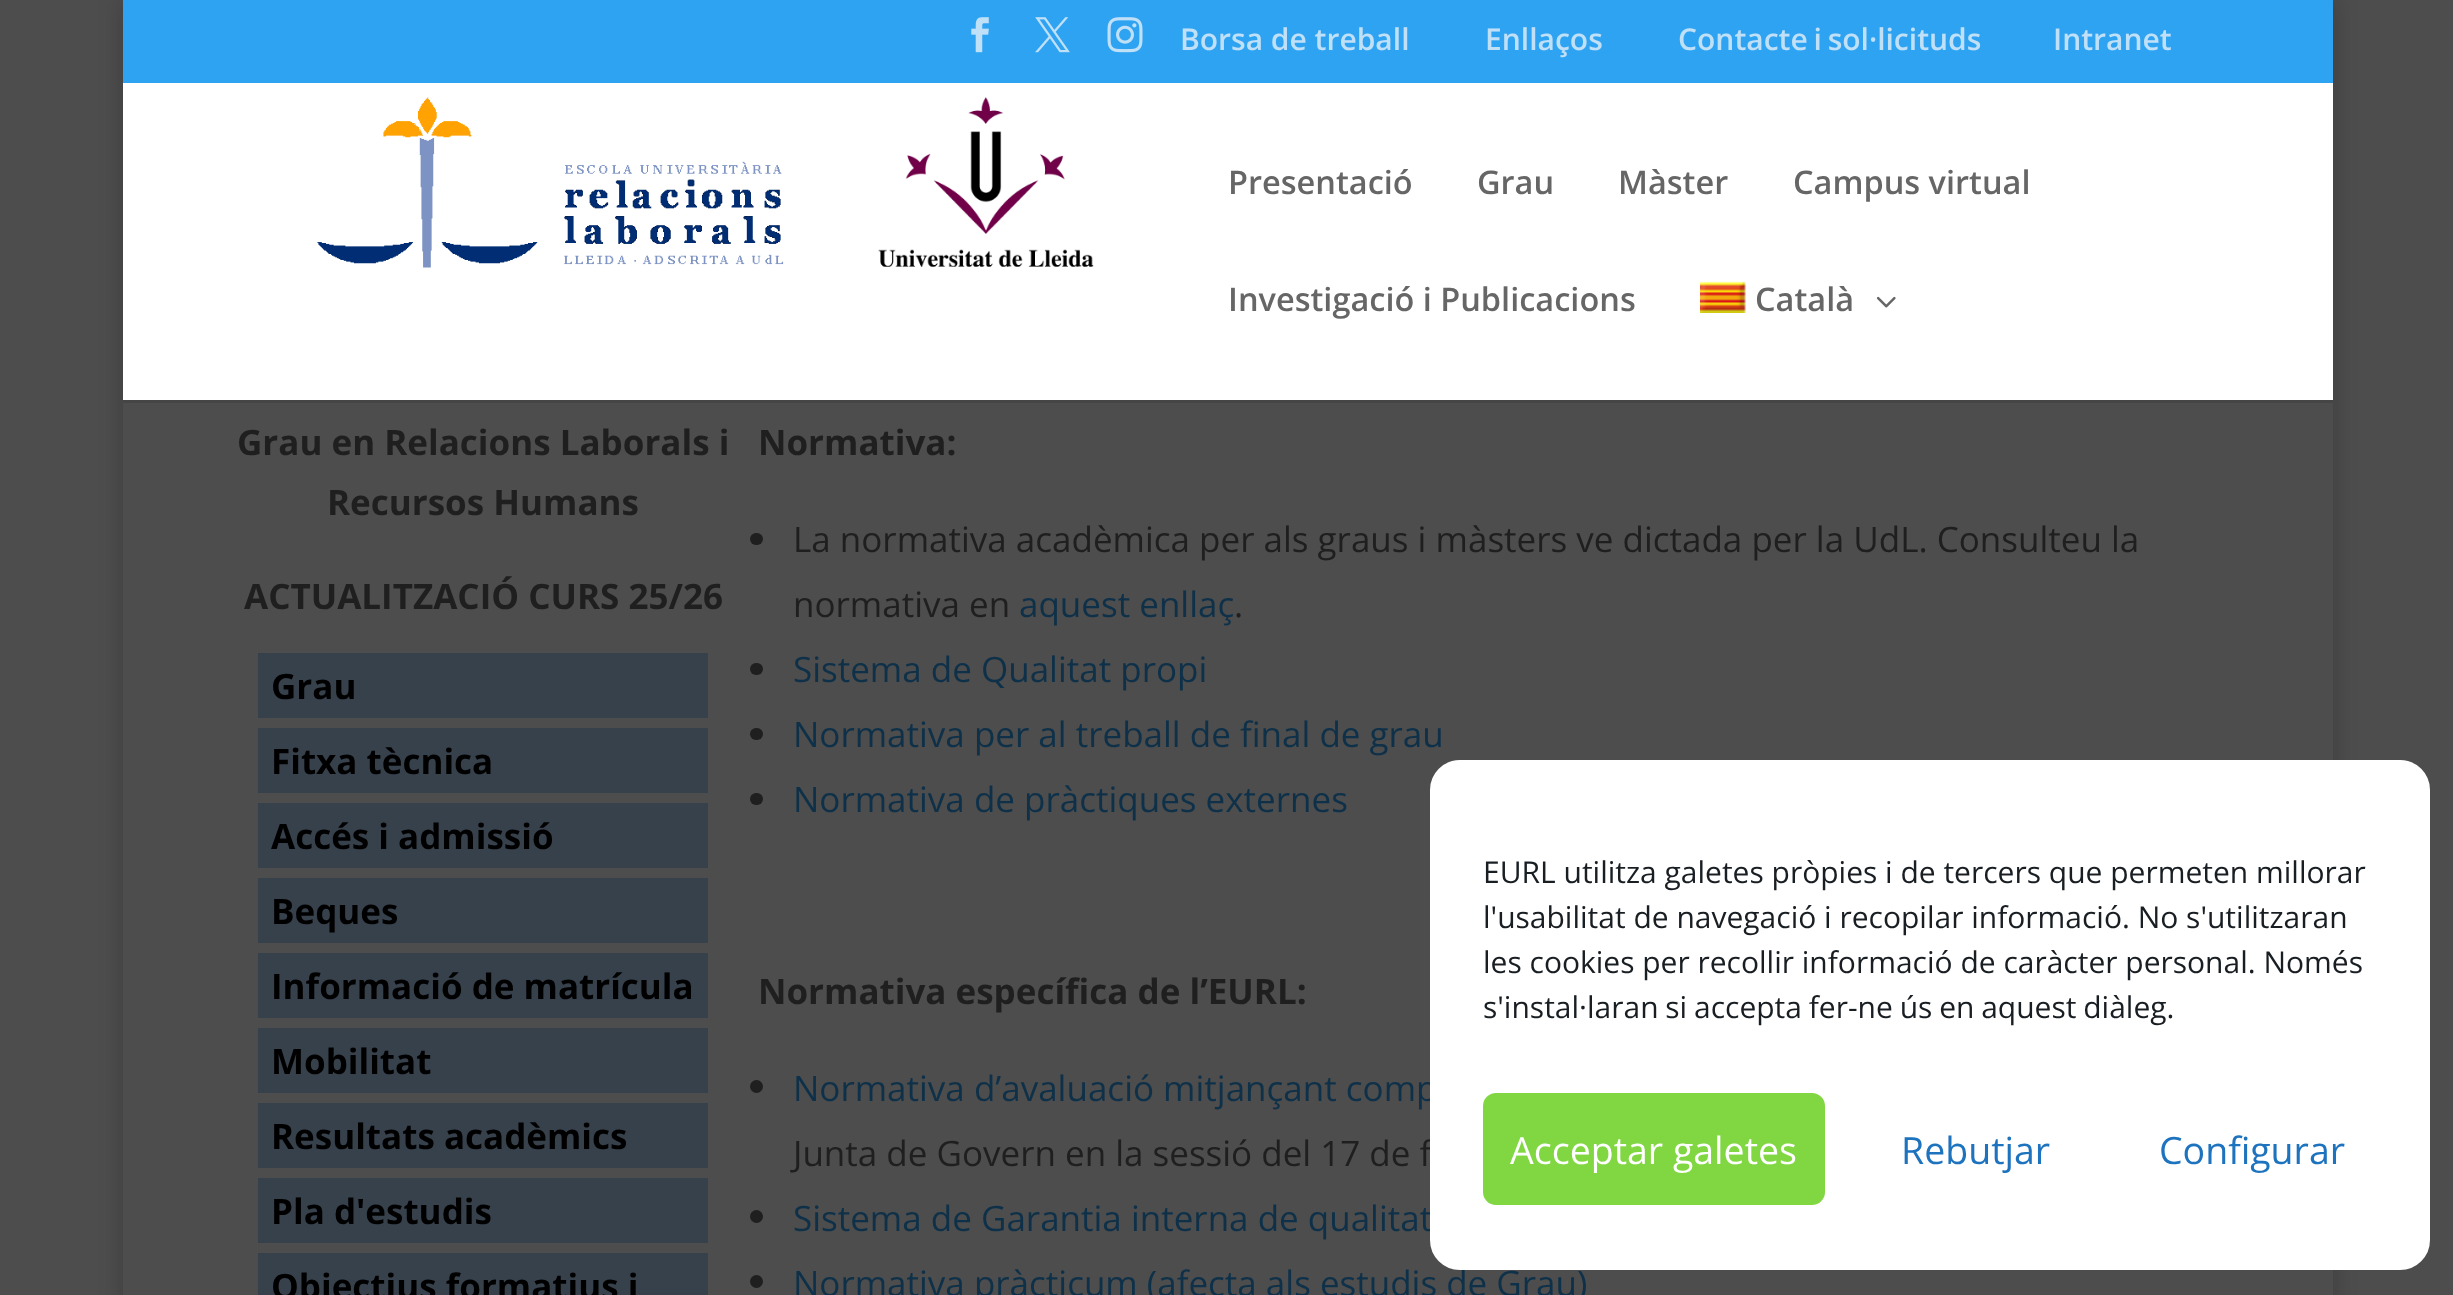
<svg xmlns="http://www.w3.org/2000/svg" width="2453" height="1295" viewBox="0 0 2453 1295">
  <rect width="100%" height="100%" fill="#4d4d4d"/>
  <path d="M123 0h2210v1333H123z" fill="#00000033" filter="blur(12.5px)"/>
  <path d="M123 0h2210v83H123z" fill="#2ea3f2"/>
  <image x="971" y="17" width="18" height="36" href="img/1.png"/>
  <image x="1035" y="17" width="35" height="36" href="img/2.png"/>
  <image x="1107" y="17" width="36" height="36" href="img/3.png"/>
  <path d="M123 400h2210v895H123z" fill="#4d4d4d"/>
  <path d="M123 400V403H2333V85H2332V400Z" fill="#0000001a"/>
  <path d="M123 83h2210v317H123z" fill="#fff"/>
  <image x="317" y="97" width="777" height="171" href="img/4.png"/>
  <image x="1700" y="281" width="46" height="32" href="img/5.png"/>
  <image x="1876" y="296" width="20" height="12" href="img/6.png"/>
  <path d="M258 653h450v65H258z" fill="#37414c"/>
  <path d="M258 728h450v65H258z" fill="#37414c"/>
  <path d="M258 803h450v65H258z" fill="#37414c"/>
  <path d="M258 878h450v65H258z" fill="#37414c"/>
  <path d="M258 953h450v65H258z" fill="#37414c"/>
  <path d="M258 1028h450v65H258z" fill="#37414c"/>
  <path d="M258 1103h450v65H258z" fill="#37414c"/>
  <path d="M258 1178h450v65H258z" fill="#37414c"/>
  <path d="M258 1253h450v42H258z" fill="#37414c"/>
  <rect x="750" y="533" width="13" height="12" rx="6" fill="#1f1f1f"/>
  <rect x="750" y="663" width="13" height="12" rx="6" fill="#1f1f1f"/>
  <rect x="750" y="728" width="13" height="12" rx="6" fill="#1f1f1f"/>
  <rect x="750" y="793" width="13" height="12" rx="6" fill="#1f1f1f"/>
  <circle cx="756.5" cy="1086.5" r="6.5" fill="#1f1f1f"/>
  <circle cx="756.5" cy="1216.5" r="6.5" fill="#1f1f1f"/>
  <circle cx="756.5" cy="1281.5" r="6.5" fill="#1f1f1f"/>
  <g font-family="Open Sans" font-size="30" font-weight="600" fill="#c0e0f8">
    <text x="1180" y="50">Borsa de treball</text>
    <text x="1485" y="50">Enllaços</text>
    <text x="1678" y="50" word-spacing="-2">Contacte i sol·licituds</text>
    <text x="2053" y="50">Intranet</text>
  </g>
  <g font-family="Open Sans" font-size="32.5" font-weight="600" fill="#666">
    <text x="1228" y="194">Presentació</text>
    <text x="1477" y="194">Grau</text>
    <text x="1618" y="194">Màster</text>
    <text x="1793" y="194">Campus virtual</text>
    <text x="1228" y="311">Investigació i Publicacions</text>
    <text x="1755" y="311">Català</text>
  </g>
  <g font-family="Open Sans" font-size="35" font-weight="bold" fill="#1f1f1f">
    <text x="237" y="455">Grau en Relacions Laborals i</text>
    <text x="327" y="515">Recursos Humans</text>
    <text x="244" y="609">ACTUALITZACIÓ CURS 25/26</text>
  </g>
  <g font-family="Open Sans" font-size="35" font-weight="bold" fill="#000">
    <text x="271" y="699">Grau</text>
    <text x="271" y="774">Fitxa tècnica</text>
    <text x="271" y="849">Accés i admissió</text>
    <text x="271" y="924">Beques</text>
    <text x="271" y="999">Informació de matrícula</text>
    <text x="271" y="1074">Mobilitat</text>
    <text x="271" y="1149">Resultats acadèmics</text>
    <text x="271" y="1224">Pla d'estudis</text>
    <text x="271" y="1299">Objectius formatius i</text>
  </g>
  <text x="758" y="455" font-family="Open Sans" font-size="35" font-weight="bold" fill="#1f1f1f">Normativa:</text>
  <g font-family="Open Sans" font-size="35" fill="#1f1f1f">
    <text x="793" y="552">La normativa acadèmica per als graus i màsters ve dictada per la UdL. Consulteu la</text>
    <text x="793" y="617">normativa en</text>
  </g>
  <text x="1019" y="617" font-family="Open Sans" font-size="35" fill="#0e3149">aquest enllaç</text>
  <text x="1234" y="617" font-family="Open Sans" font-size="35" fill="#1f1f1f">.</text>
  <g font-family="Open Sans" font-size="35" fill="#0e3149">
    <text x="793" y="682">Sistema de Qualitat propi</text>
    <text x="793" y="747">Normativa per al treball de final de grau</text>
    <text x="793" y="812">Normativa de pràctiques externes</text>
  </g>
  <text x="758" y="1004" font-family="Open Sans" font-size="35" font-weight="bold" fill="#1f1f1f">Normativa específica de l’EURL:</text>
  <text x="793" y="1101" font-family="Open Sans" font-size="35" fill="#0e3149">Normativa d’avaluació mitjançant comp</text>
  <text x="793" y="1166" font-family="Open Sans" font-size="35" fill="#1f1f1f">Junta de Govern en la sessió del 17 de f</text>
  <g font-family="Open Sans" font-size="35" fill="#0e3149">
    <text x="793" y="1231">Sistema de Garantia interna de qualitat</text>
    <text x="793" y="1296">Normativa pràcticum (afecta als estudis de Grau)</text>
  </g>
  <rect x="1431.5" y="761.5" width="997" height="507" rx="28.5" fill="#fff" stroke="#fff" stroke-width="3"/>
  <g font-family="Open Sans" font-size="30" fill="#191e23">
    <text x="1483" y="883">EURL utilitza galetes pròpies i de tercers que permeten millorar</text>
    <text x="1483" y="928">l'usabilitat de navegació i recopilar informació. No s'utilitzaran</text>
    <text x="1483" y="973">les cookies per recollir informació de caràcter personal. Només</text>
    <text x="1483" y="1018" word-spacing="-1">s'instal·laran si accepta fer-ne ús en aquest diàleg.</text>
  </g>
  <rect x="1484.5" y="1094.5" width="339" height="109" rx="11.5" fill="#81d742" stroke="#81d742" stroke-width="3"/>
  <text x="1510" y="1164" font-family="Open Sans" font-size="37.5" fill="#fff">Acceptar galetes</text>
  <g font-family="Open Sans" font-size="37.5" fill="#1e73be">
    <text x="1901" y="1164">Rebutjar</text>
    <text x="2159" y="1164">Configurar</text>
  </g>
</svg>
